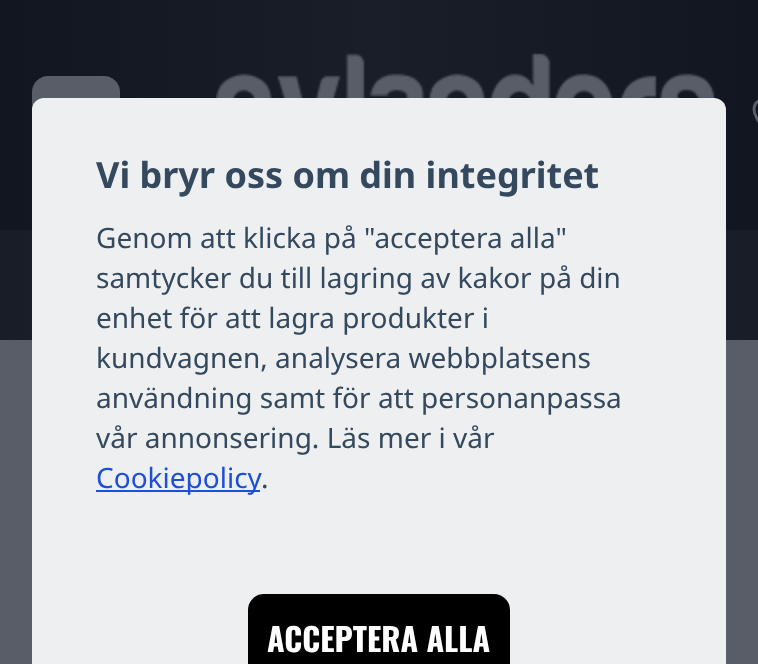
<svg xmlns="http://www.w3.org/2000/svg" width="758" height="664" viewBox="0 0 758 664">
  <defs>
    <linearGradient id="g1" gradientUnits="userSpaceOnUse" x1="758" y1="170" x2="0" y2="170"><stop offset="0" stop-color="#111620"/><stop offset="0.5" stop-color="#191e28"/><stop offset="1" stop-color="#111620"/></linearGradient>
    <linearGradient id="g2" gradientUnits="userSpaceOnUse" x1="758" y1="285" x2="0" y2="285"><stop offset="0" stop-color="#191d28"/><stop offset="0.5" stop-color="#222731"/><stop offset="1" stop-color="#191d28"/></linearGradient>
  </defs>
  <rect width="100%" height="100%" fill="#585d68"/>
  <path d="M0 0h758v230H0z" fill="url(#g1)"/>
  <rect x="32" y="76" width="88" height="80" rx="16" fill="#585d68"/>
  <image x="216" y="53" width="499" height="46" href="img/1.png"/>
  <path d="M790 108.5C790 98.5 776 96 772 105C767 94 746.5 100.5 757 118.5C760 124.5 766 129.5 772 132.5C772 132.5 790 123 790 108.5Z" fill="none" stroke="#585d68" stroke-width="3" stroke-linecap="round" stroke-linejoin="round"/>
  <path d="M0 230h758v110H0z" fill="url(#g2)"/>
  <rect x="32" y="98" width="694" height="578" rx="12" fill="#edeff1"/>
  <path d="M96 490h164v2H96z" fill="#1d4ed8"/>
  <rect x="248" y="594" width="262" height="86" rx="16" fill="#000"/>
  <text x="96" y="188" font-family="Noto Sans" font-size="36" font-weight="bold" fill="#34495e">Vi bryr oss om din integritet</text>
  <g font-family="Noto Sans" font-size="28" fill="#34495e">
    <text x="96" y="248">Genom att klicka på "acceptera alla"</text>
    <text x="96" y="288">samtycker du till lagring av kakor på din</text>
    <text x="96" y="328">enhet för att lagra produkter i</text>
    <text x="96" y="368">kundvagnen, analysera webbplatsens</text>
    <text x="96" y="408">användning samt för att personanpassa</text>
    <text x="96" y="448">vår annonsering. Läs mer i vår</text>
  </g>
  <text x="96" y="488" font-family="Noto Sans" font-size="28" fill="#1d4ed8">Cookiepolicy</text>
  <text x="261" y="488" font-family="Noto Sans" font-size="28" fill="#34495e">.</text>
  <text x="267" y="652" font-family="Oswald" font-size="32" font-weight="bold" fill="#fff">ACCEPTERA ALLA</text>
</svg>
